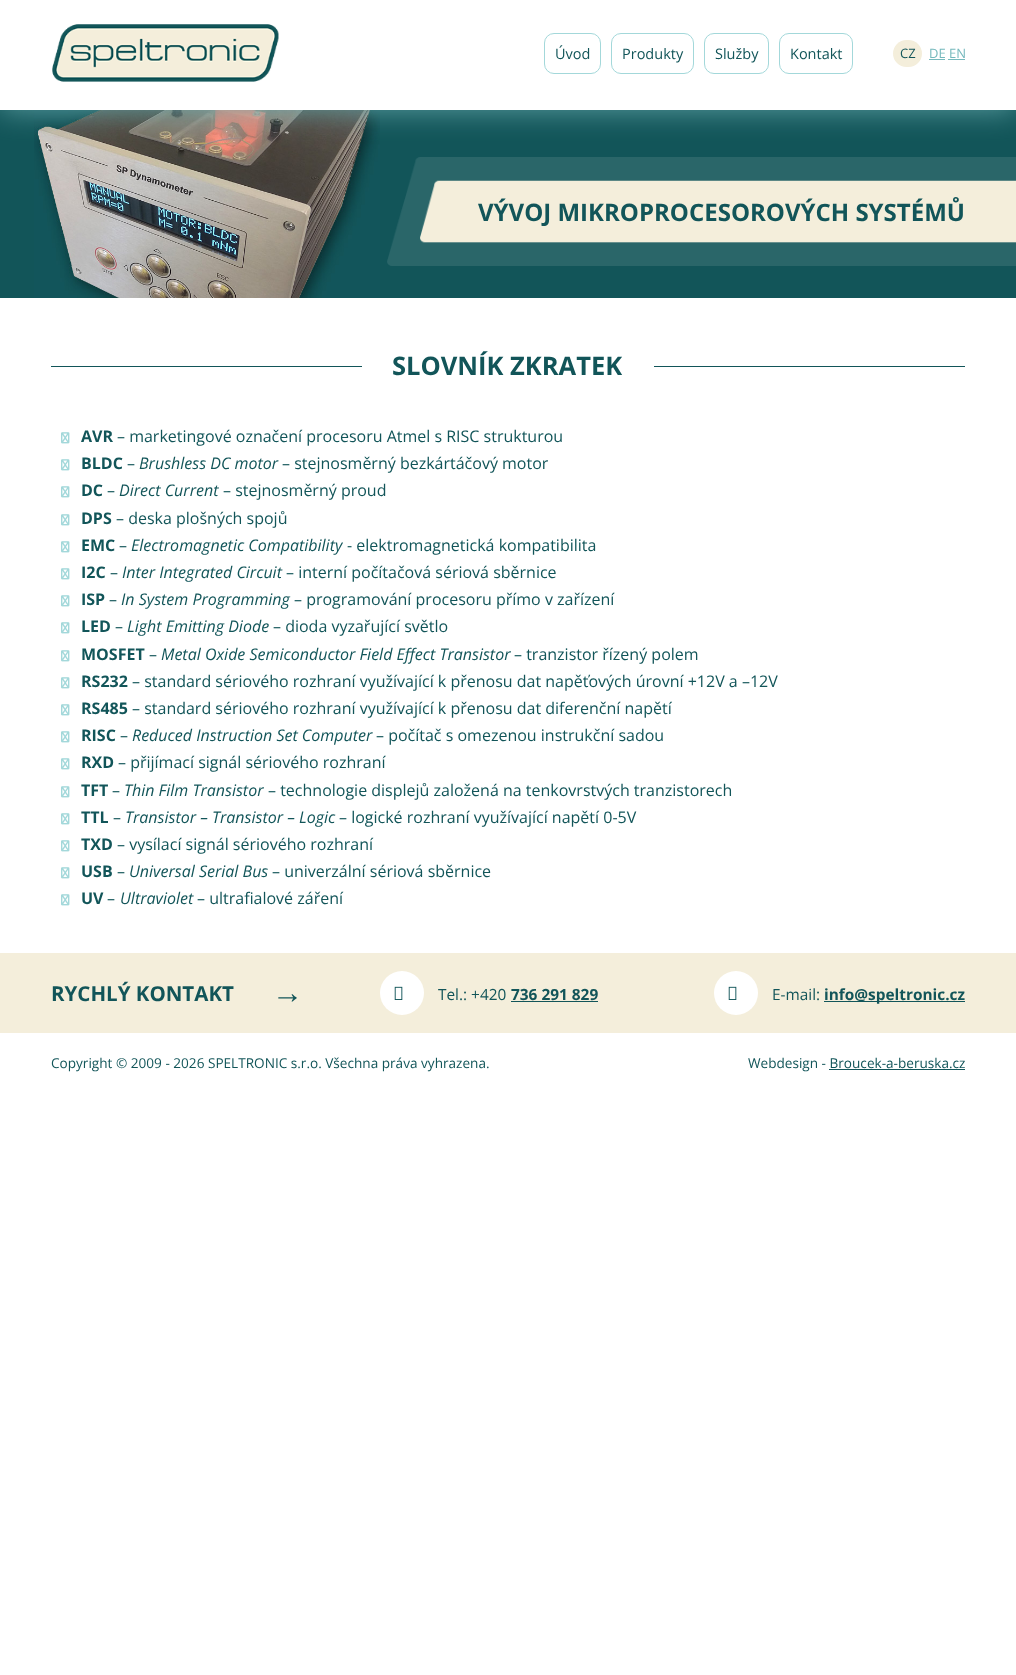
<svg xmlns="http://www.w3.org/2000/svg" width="1016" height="1675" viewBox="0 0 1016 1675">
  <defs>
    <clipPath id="clip1"><path d="M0 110h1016v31H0z"/></clipPath>
  </defs>
  <rect width="100%" height="100%" fill="#fff"/>
  <path d="M0 110h1016v188H0z" fill="#125559"/>
  <image x="34" y="110" width="346" height="188" href="img/2.png"/>
  <g clip-path="url(#clip1)">
    <path d="M0 0h1016v110H0z" fill="#5d9fa3" filter="blur(15px)"/>
  </g>
  <image x="52" y="24" width="227" height="58" href="img/1.png"/>
  <rect x="544.5" y="33.5" width="56" height="40" rx="9.5" fill="none" stroke="#a3d8da"/>
  <rect x="611.5" y="33.5" width="82" height="40" rx="9.5" fill="none" stroke="#a3d8da"/>
  <rect x="704.5" y="33.5" width="64" height="40" rx="9.5" fill="none" stroke="#a3d8da"/>
  <rect x="779.5" y="33.5" width="73" height="40" rx="9.5" fill="none" stroke="#a3d8da"/>
  <rect x="893" y="40" width="29" height="27" rx="13.5" fill="#f4eedb"/>
  <path d="M929 59h16v1H929z" fill="#76b9bd"/>
  <path d="M948 59h17v1H948z" fill="#76b9bd"/>
  <image x="387" y="157" width="629" height="109" href="img/3.png"/>
  <path d="M51 366h914v1H51z" fill="#125559"/>
  <path d="M362 366h292v1H362z" fill="#fff"/>
  <image x="61" y="432" width="9" height="12" href="img/4.png"/>
  <image x="61" y="459" width="9" height="12" href="img/4.png"/>
  <image x="61" y="486" width="9" height="12" href="img/4.png"/>
  <image x="61" y="514" width="9" height="12" href="img/4.png"/>
  <image x="61" y="541" width="9" height="12" href="img/4.png"/>
  <image x="61" y="568" width="9" height="12" href="img/4.png"/>
  <image x="61" y="595" width="9" height="12" href="img/4.png"/>
  <image x="61" y="622" width="9" height="12" href="img/4.png"/>
  <image x="61" y="650" width="9" height="12" href="img/4.png"/>
  <image x="61" y="677" width="9" height="12" href="img/4.png"/>
  <image x="61" y="704" width="9" height="12" href="img/4.png"/>
  <image x="61" y="731" width="9" height="12" href="img/4.png"/>
  <image x="61" y="758" width="9" height="12" href="img/4.png"/>
  <image x="61" y="786" width="9" height="12" href="img/4.png"/>
  <image x="61" y="813" width="9" height="12" href="img/4.png"/>
  <image x="61" y="840" width="9" height="12" href="img/4.png"/>
  <image x="61" y="867" width="9" height="12" href="img/4.png"/>
  <image x="61" y="894" width="9" height="12" href="img/4.png"/>
  <path d="M0 953h1016v80H0z" fill="#f4eedb"/>
  <circle cx="402" cy="993" r="22" fill="#fff"/>
  <image x="394" y="986" width="9" height="14" href="img/5.png"/>
  <path d="M511 1001h87v1H511z" fill="#125559"/>
  <circle cx="736" cy="993" r="22" fill="#fff"/>
  <image x="728" y="986" width="9" height="14" href="img/5.png"/>
  <path d="M824 1001h141v1H824z" fill="#125559"/>
  <path d="M829 1069h136v1H829z" fill="#125559"/>
  <g font-family="Open Sans" font-size="14.5" fill="#125559">
    <text x="555" y="59">Úvod</text>
    <text x="622" y="59">Produkty</text>
    <text x="715" y="59">Služby</text>
    <text x="790" y="59">Kontakt</text>
  </g>
  <text x="900" y="58" font-family="Open Sans" font-size="13" fill="#125559">CZ</text>
  <text x="929" y="58" font-family="Open Sans" font-size="13" fill="#76b9bd">DE EN</text>
  <text x="478" y="221" font-family="Open Sans" font-size="24" font-weight="bold" fill="#125559">VÝVOJ MIKROPROCESOROVÝCH SYSTÉMŮ</text>
  <text x="392" y="375" font-family="Open Sans" font-size="25.5" font-weight="bold" fill="#125559">SLOVNÍK ZKRATEK</text>
  <text x="81" y="442" font-family="Open Sans" font-size="16" font-weight="bold" fill="#125559">AVR</text>
  <text x="117" y="442" font-family="Open Sans" font-size="16" fill="#125559">– marketingové označení procesoru Atmel s RISC strukturou</text>
  <text x="81" y="469" font-family="Open Sans" font-size="16" font-weight="bold" fill="#125559">BLDC</text>
  <text x="127" y="469" font-family="Open Sans" font-size="16" fill="#125559">–</text>
  <text x="139" y="469" font-family="Open Sans" font-size="16" font-style="italic" fill="#125559">Brushless DC motor</text>
  <text x="282" y="469" font-family="Open Sans" font-size="16" fill="#125559">– stejnosměrný bezkártáčový motor</text>
  <text x="81" y="496" font-family="Open Sans" font-size="16" font-weight="bold" fill="#125559">DC</text>
  <text x="107" y="496" font-family="Open Sans" font-size="16" fill="#125559">–</text>
  <text x="119" y="496" font-family="Open Sans" font-size="16" font-style="italic" fill="#125559">Direct Current</text>
  <text x="223" y="496" font-family="Open Sans" font-size="16" fill="#125559">– stejnosměrný proud</text>
  <text x="81" y="524" font-family="Open Sans" font-size="16" font-weight="bold" fill="#125559">DPS</text>
  <text x="116" y="524" font-family="Open Sans" font-size="16" fill="#125559">– deska plošných spojů</text>
  <text x="81" y="551" font-family="Open Sans" font-size="16" font-weight="bold" fill="#125559">EMC</text>
  <text x="119" y="551" font-family="Open Sans" font-size="16" fill="#125559">–</text>
  <text x="131" y="551" font-family="Open Sans" font-size="16" font-style="italic" fill="#125559">Electromagnetic Compatibility</text>
  <text x="347" y="551" font-family="Open Sans" font-size="16" fill="#125559">- elektromagnetická kompatibilita</text>
  <text x="81" y="578" font-family="Open Sans" font-size="16" font-weight="bold" fill="#125559">I2C</text>
  <text x="110" y="578" font-family="Open Sans" font-size="16" fill="#125559">–</text>
  <text x="122" y="578" font-family="Open Sans" font-size="16" font-style="italic" fill="#125559">Inter Integrated Circuit</text>
  <text x="286" y="578" font-family="Open Sans" font-size="16" fill="#125559">– interní počítačová sériová sběrnice</text>
  <text x="81" y="605" font-family="Open Sans" font-size="16" font-weight="bold" fill="#125559">ISP</text>
  <text x="109" y="605" font-family="Open Sans" font-size="16" fill="#125559">–</text>
  <text x="121" y="605" font-family="Open Sans" font-size="16" font-style="italic" fill="#125559">In System Programming</text>
  <text x="294" y="605" font-family="Open Sans" font-size="16" fill="#125559">– programování procesoru přímo v zařízení</text>
  <text x="81" y="632" font-family="Open Sans" font-size="16" font-weight="bold" fill="#125559">LED</text>
  <text x="115" y="632" font-family="Open Sans" font-size="16" fill="#125559">–</text>
  <text x="127" y="632" font-family="Open Sans" font-size="16" font-style="italic" fill="#125559">Light Emitting Diode</text>
  <text x="273" y="632" font-family="Open Sans" font-size="16" fill="#125559">– dioda vyzařující světlo</text>
  <text x="81" y="660" font-family="Open Sans" font-size="16" font-weight="bold" fill="#125559">MOSFET</text>
  <text x="149" y="660" font-family="Open Sans" font-size="16" fill="#125559">–</text>
  <text x="161" y="660" font-family="Open Sans" font-size="16" font-style="italic" fill="#125559">Metal Oxide Semiconductor Field Effect Transistor</text>
  <text x="514" y="660" font-family="Open Sans" font-size="16" fill="#125559">– tranzistor řízený polem</text>
  <text x="81" y="687" font-family="Open Sans" font-size="16" font-weight="bold" fill="#125559">RS232</text>
  <text x="132" y="687" font-family="Open Sans" font-size="16" fill="#125559">– standard sériového rozhraní využívající k přenosu dat napěťových úrovní +12V a –12V</text>
  <text x="81" y="714" font-family="Open Sans" font-size="16" font-weight="bold" fill="#125559">RS485</text>
  <text x="132" y="714" font-family="Open Sans" font-size="16" fill="#125559">– standard sériového rozhraní využívající k přenosu dat diferenční napětí</text>
  <text x="81" y="741" font-family="Open Sans" font-size="16" font-weight="bold" fill="#125559">RISC</text>
  <text x="120" y="741" font-family="Open Sans" font-size="16" fill="#125559">–</text>
  <text x="132" y="741" font-family="Open Sans" font-size="16" font-style="italic" fill="#125559">Reduced Instruction Set Computer</text>
  <text x="376" y="741" font-family="Open Sans" font-size="16" fill="#125559">– počítač s omezenou instrukční sadou</text>
  <text x="81" y="768" font-family="Open Sans" font-size="16" font-weight="bold" fill="#125559">RXD</text>
  <text x="118" y="768" font-family="Open Sans" font-size="16" fill="#125559">– přijímací signál sériového rozhraní</text>
  <text x="81" y="796" font-family="Open Sans" font-size="16" font-weight="bold" fill="#125559">TFT</text>
  <text x="112" y="796" font-family="Open Sans" font-size="16" fill="#125559">–</text>
  <text x="124" y="796" font-family="Open Sans" font-size="16" font-style="italic" fill="#125559">Thin Film Transistor</text>
  <text x="268" y="796" font-family="Open Sans" font-size="16" fill="#125559">– technologie displejů založená na tenkovrstvých tranzistorech</text>
  <text x="81" y="823" font-family="Open Sans" font-size="16" font-weight="bold" fill="#125559">TTL</text>
  <text x="113" y="823" font-family="Open Sans" font-size="16" fill="#125559">–</text>
  <text x="125" y="823" font-family="Open Sans" font-size="16" font-style="italic" fill="#125559">Transistor – Transistor – Logic</text>
  <text x="339" y="823" font-family="Open Sans" font-size="16" fill="#125559">– logické rozhraní využívající napětí 0-5V</text>
  <text x="81" y="850" font-family="Open Sans" font-size="16" font-weight="bold" fill="#125559">TXD</text>
  <text x="117" y="850" font-family="Open Sans" font-size="16" fill="#125559">– vysílací signál sériového rozhraní</text>
  <text x="81" y="877" font-family="Open Sans" font-size="16" font-weight="bold" fill="#125559">USB</text>
  <text x="117" y="877" font-family="Open Sans" font-size="16" fill="#125559">–</text>
  <text x="129" y="877" font-family="Open Sans" font-size="16" font-style="italic" fill="#125559">Universal Serial Bus</text>
  <text x="272" y="877" font-family="Open Sans" font-size="16" fill="#125559">– univerzální sériová sběrnice</text>
  <text x="81" y="904" font-family="Open Sans" font-size="16" font-weight="bold" fill="#125559">UV</text>
  <text x="107" y="904" font-family="Open Sans" font-size="16" fill="#125559">–</text>
  <text x="120" y="904" font-family="Open Sans" font-size="16" font-style="italic" fill="#125559">Ultraviolet</text>
  <text x="197" y="904" font-family="Open Sans" font-size="16" fill="#125559">– ultrafialové záření</text>
  <text x="51" y="1001" font-family="Open Sans" font-size="20.5" font-weight="bold" fill="#125559">RYCHLÝ KONTAKT</text>
  <text x="272" y="1003" font-family="Liberation Sans" font-size="31" font-weight="bold" fill="#125559">→</text>
  <text x="438" y="1000" font-family="Open Sans" font-size="15.4" fill="#125559">Tel.: +420</text>
  <text x="511" y="1000" font-family="Open Sans" font-size="15.4" font-weight="bold" fill="#125559">736 291 829</text>
  <text x="772" y="1000" font-family="Open Sans" font-size="15.4" fill="#125559">E-mail:</text>
  <text x="824" y="1000" font-family="Open Sans" font-size="15.4" font-weight="bold" fill="#125559">info@speltronic.cz</text>
  <g font-family="Open Sans" font-size="13.6" fill="#125559">
    <text x="51" y="1068">Copyright © 2009 - 2026 SPELTRONIC s.r.o. Všechna práva vyhrazena.</text>
    <text x="748" y="1068">Webdesign - Broucek-a-beruska.cz</text>
  </g>
</svg>
